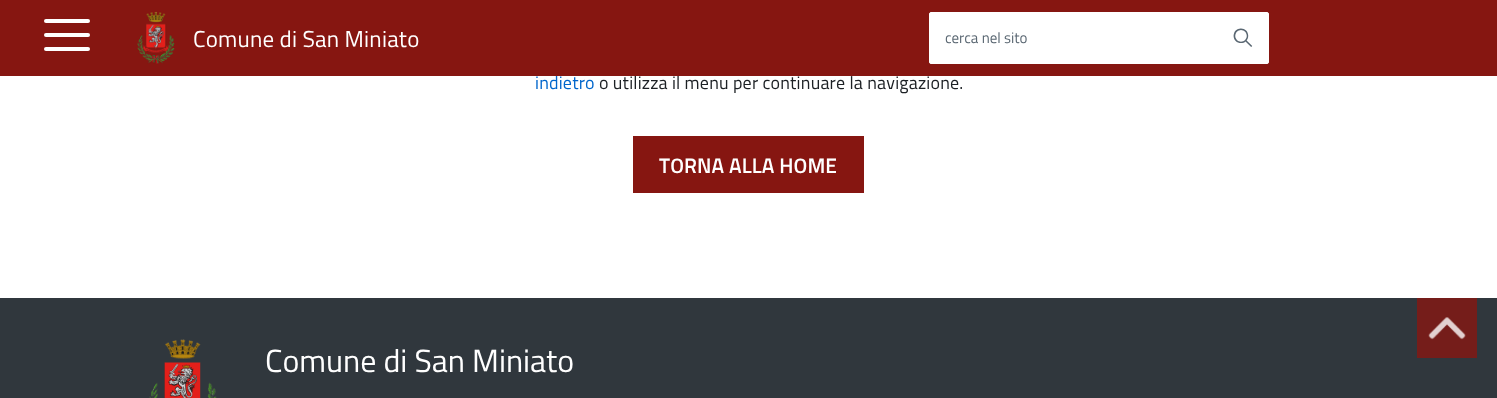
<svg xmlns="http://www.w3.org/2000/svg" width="1497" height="398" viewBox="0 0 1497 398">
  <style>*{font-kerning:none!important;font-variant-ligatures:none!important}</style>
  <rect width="100%" height="100%" fill="#fff"/>
  <path d="M0 0h1497v76H0z" fill="#861611"/>
  <rect x="44" y="33" width="46" height="4" rx="2" fill="#fff"/>
  <rect x="44" y="19" width="46" height="4" rx="2" fill="#fff"/>
  <rect x="44" y="47" width="46" height="4" rx="2" fill="#fff"/>
  <image x="137" y="11" width="38" height="53" href="img/1.png"/>
  <rect x="929.5" y="12.5" width="339" height="51" rx="1.5" fill="#fff" stroke="#fff"/>
  <path d="M633 136h231v57H633z" fill="#861611"/>
  <path d="M0 298h1497v100H0z" fill="#30373d"/>
  <path d="M1417 298h60v60H1417z" fill="#751d1a"/>
  <image x="1428" y="317" width="38" height="23" href="img/2.png"/>
  <image x="149" y="339" width="68" height="59" href="img/3.png"/>
  <text x="193" y="47" font-family="Titillium Web" font-size="23" letter-spacing="0.2" fill="#fff">Comune di San Miniato</text>
  <text x="945" y="43" font-family="Titillium Web" font-size="15" fill="#5a6772">cerca nel sito</text>
  <text x="1251" y="47" transform="rotate(-90 1251 47)" font-family="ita" font-size="18" font-weight="bold" fill="#5a6772">🔍</text>
  <text x="535" y="89" font-family="Titillium Web" font-size="18" letter-spacing="0.2" fill="#06c">indietro</text>
  <text x="599" y="89" font-family="Titillium Web" font-size="18" letter-spacing="0.2" fill="#1c2024">o utilizza il menu per continuare la navigazione.</text>
  <text x="659" y="173" font-family="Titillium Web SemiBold" font-size="21" font-weight="600" letter-spacing="0.1" fill="#fff">TORNA ALLA HOME</text>
  <text x="265" y="372" font-family="Titillium Web" font-size="32" fill="#fff">Comune di San Miniato</text>
</svg>
